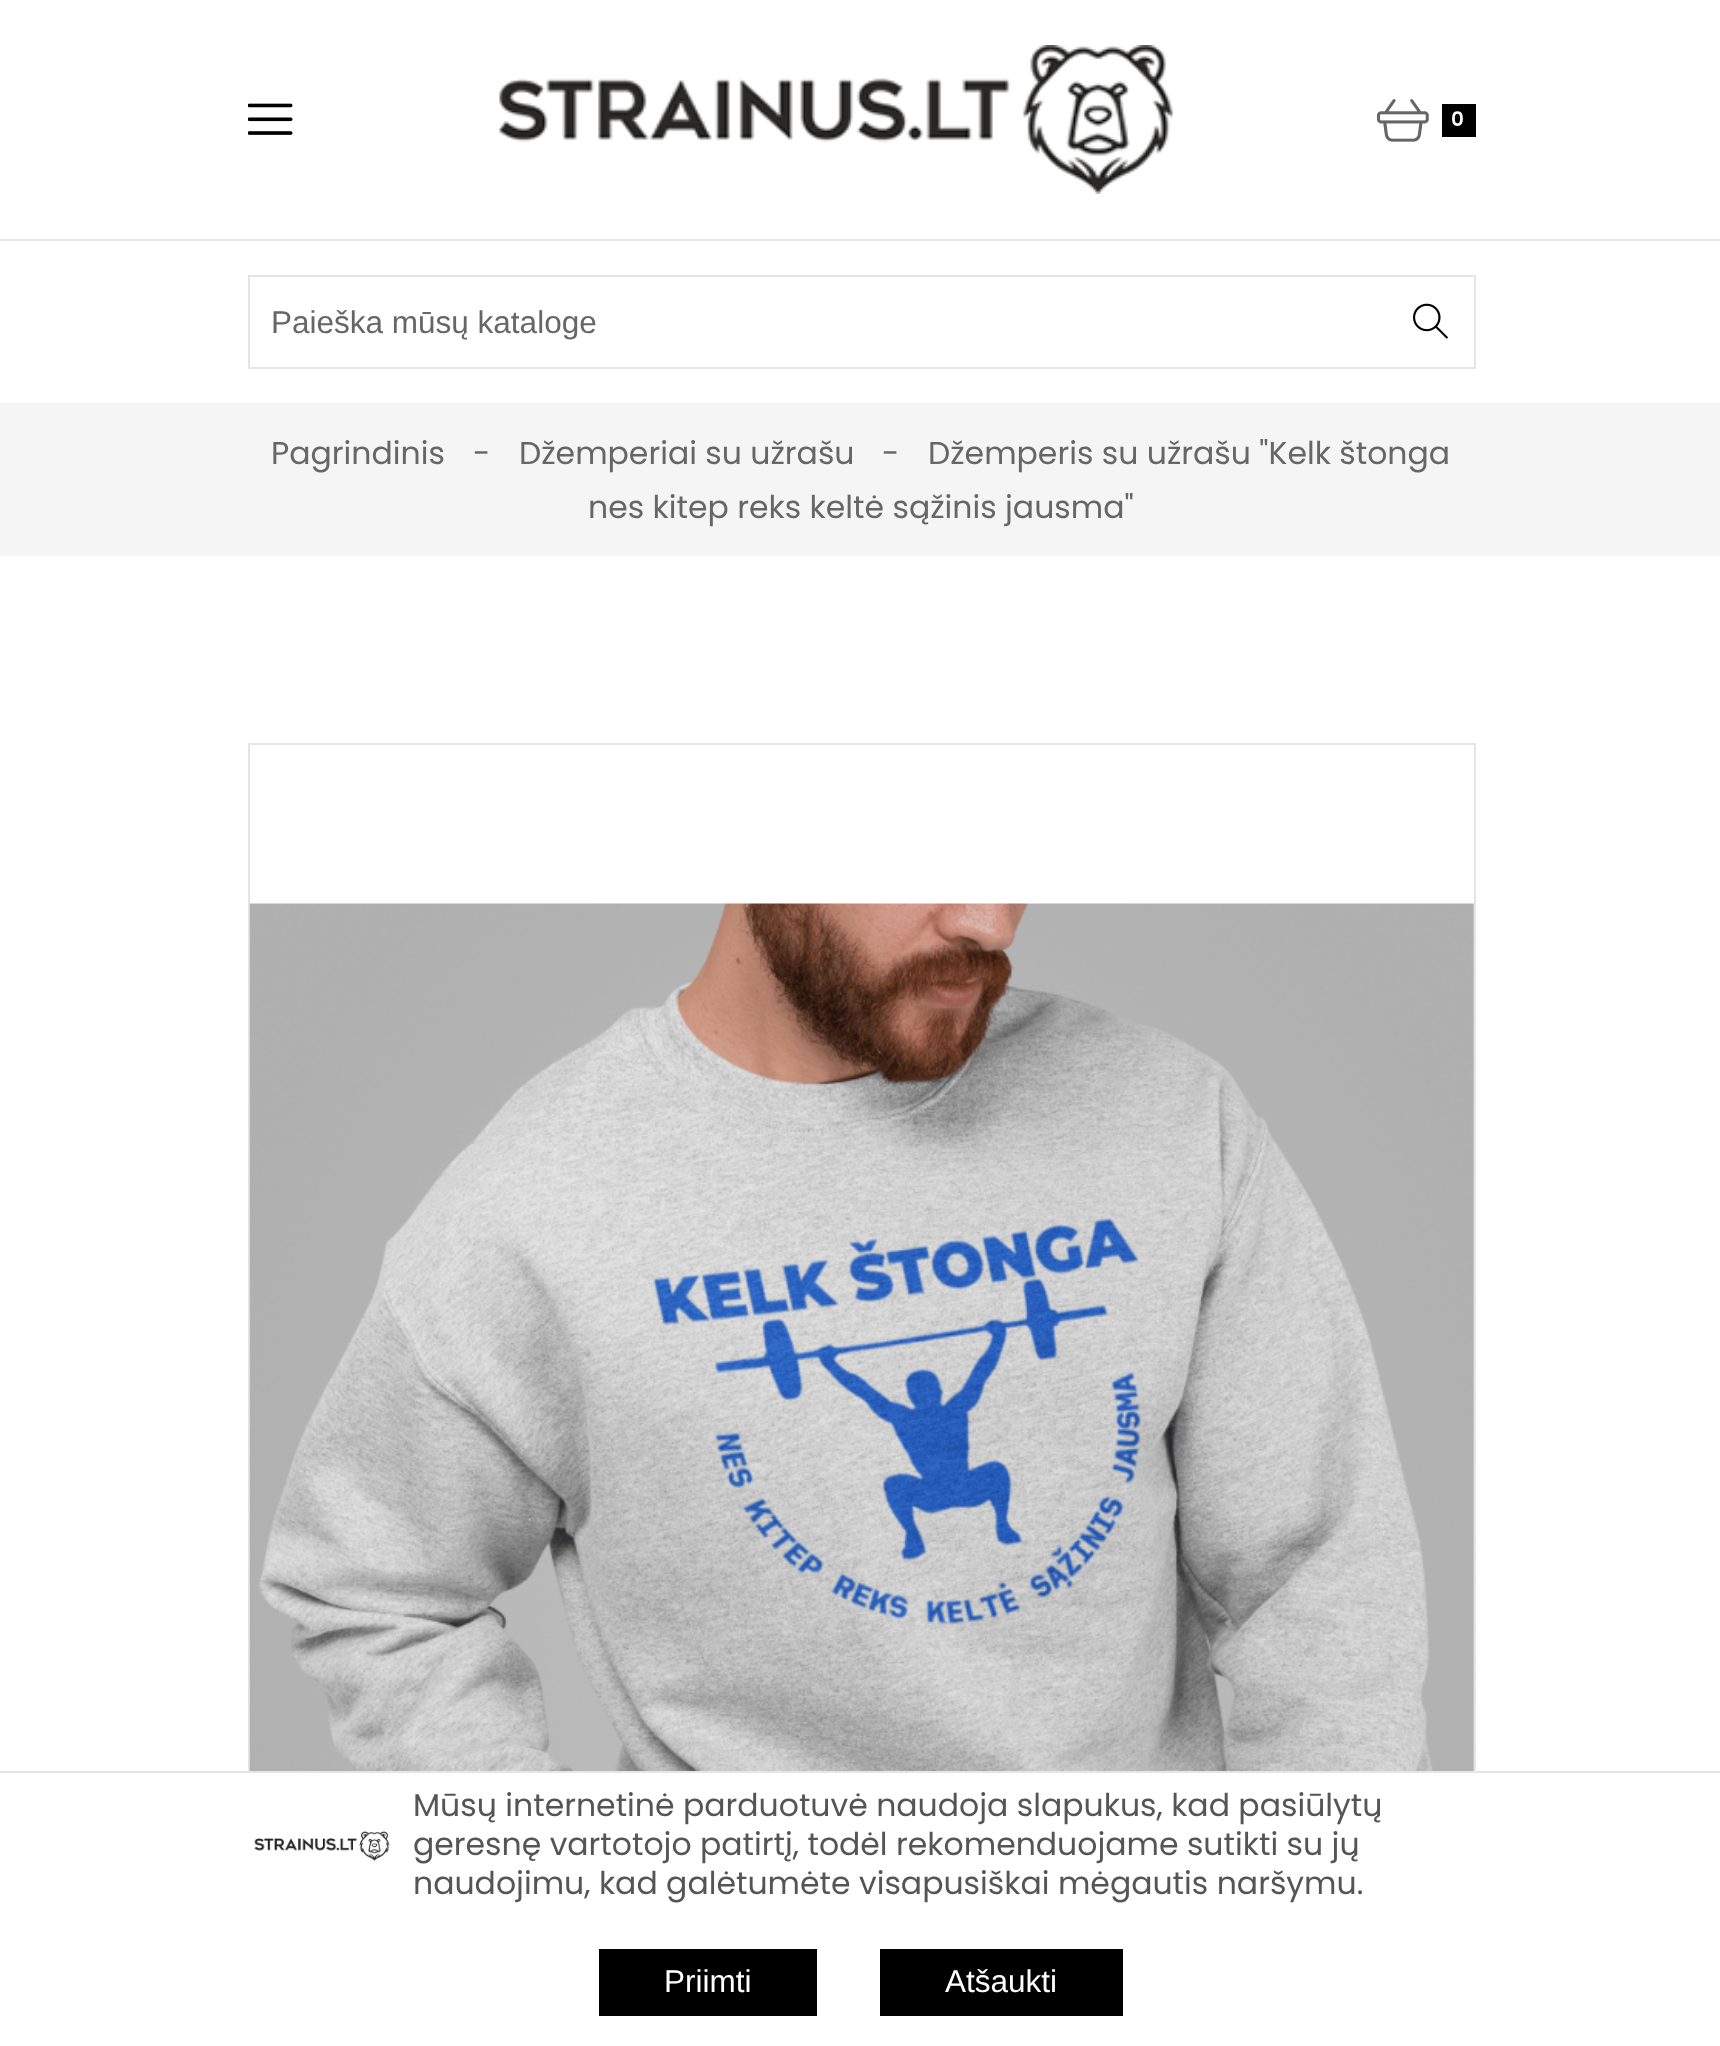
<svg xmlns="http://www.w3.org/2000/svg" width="1720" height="2046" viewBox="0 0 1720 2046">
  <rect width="100%" height="100%" fill="#fff"/>
  <image x="248" y="103" width="45" height="32" href="img/1.png"/>
  <path d="M497 45h675v149H497z" fill="#f9f9f9"/>
  <image x="497" y="45" width="676" height="149" href="img/2.png"/>
  <image x="1095" y="106" width="78" height="88" href="img/3.png"/>
  <image x="1377" y="99" width="52" height="43" href="img/4.png"/>
  <path d="M1442 104h34v33H1442z" fill="#000"/>
  <path d="M0 239h1720v2H0z" fill="#e6e6e6"/>
  <path d="M249 276h1226v92H249z" fill="none" stroke="#e5e5e5" stroke-width="2"/>
  <image x="1413" y="303" width="36" height="36" href="img/5.png"/>
  <path d="M0 403h1720v153H0z" fill="#f5f5f6"/>
  <path d="M249 744h1226v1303H249z" fill="none" stroke="#e5e5e5" stroke-width="2"/>
  <image x="249" y="903" width="1225" height="868" href="img/6.png"/>
  <path d="M248 1773h1228v273H248z" fill="#fff"/>
  <path d="M0 1771h1720v2H0z" fill="#e5e5e5"/>
  <image x="254" y="1831" width="136" height="30" href="img/7.png"/>
  <path d="M599 1949h218v67H599z" fill="#000"/>
  <path d="M880 1949h243v67H880z" fill="#000"/>
  <text x="1451" y="126" font-family="Poppins" font-size="20" font-weight="600" fill="#fff">0</text>
  <text x="271" y="333" font-family="Liberation Sans" font-size="31.5" fill="#666">Paieška mūsų kataloge</text>
  <g font-family="Poppins" font-size="31.5" fill="#666">
    <text x="271" y="464">Pagrindinis</text>
    <text x="473" y="464">-</text>
    <text x="519" y="464">Džemperiai su užrašu</text>
    <text x="882" y="464">-</text>
    <text x="928" y="464">Džemperis su užrašu "Kelk štonga</text>
    <text x="588" y="518">nes kitep reks keltė sąžinis jausma"</text>
  </g>
  <g font-family="Poppins" font-size="31.5" fill="#555">
    <text x="413" y="1816">Mūsų internetinė parduotuvė naudoja slapukus, kad pasiūlytų</text>
    <text x="413" y="1855">geresnę vartotojo patirtį, todėl rekomenduojame sutikti su jų</text>
    <text x="413" y="1894">naudojimu, kad galėtumėte visapusiškai mėgautis naršymu.</text>
  </g>
  <g font-family="Liberation Sans" font-size="31.5" fill="#fff">
    <text x="664" y="1992">Priimti</text>
    <text x="945" y="1992">Atšaukti</text>
  </g>
</svg>
